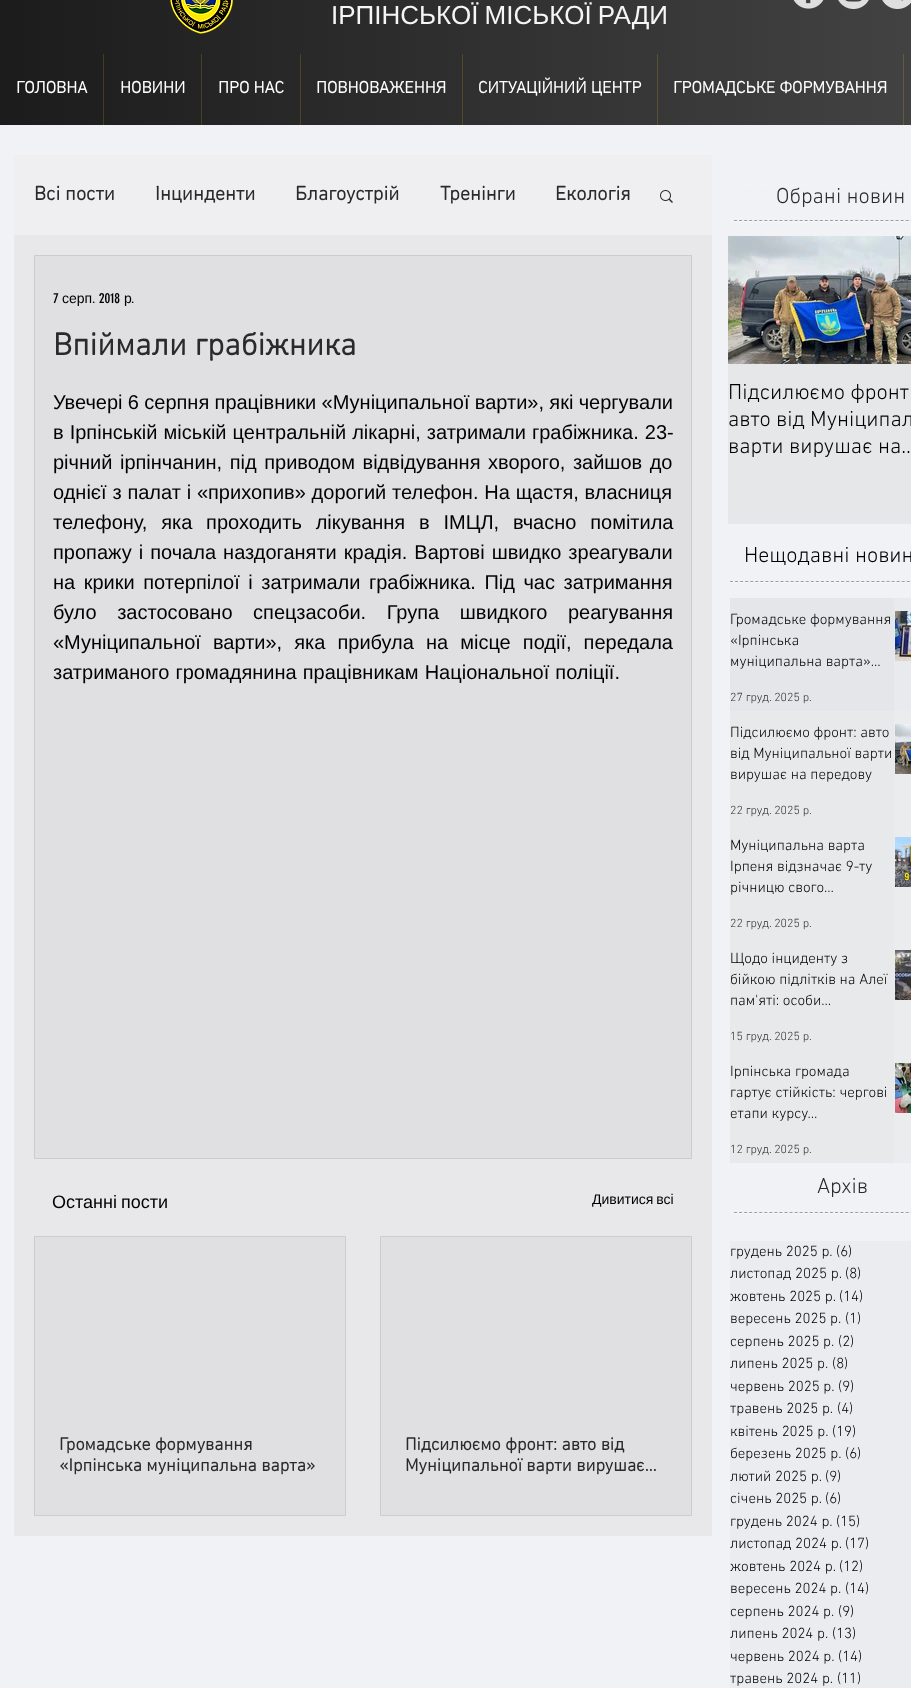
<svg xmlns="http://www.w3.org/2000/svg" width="911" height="1688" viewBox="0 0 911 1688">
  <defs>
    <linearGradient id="g1" gradientUnits="userSpaceOnUse" x1="0" y1="24" x2="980" y2="24"><stop offset="0" stop-color="#2a2a2a"/><stop offset="1" stop-color="#000"/></linearGradient>
    <linearGradient id="g2" gradientUnits="userSpaceOnUse" x1="0" y1="24" x2="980" y2="24"><stop offset="0" stop-color="#1b1b1b" stop-opacity="0.96"/><stop offset="1" stop-color="#494848" stop-opacity="0.96"/></linearGradient>
  </defs>
  <rect width="100%" height="100%" fill="#fff"/>
  <path d="M0 0h911v125H0z" fill="url(#g1)"/>
  <path d="M0 0h911v125H0z" fill="url(#g2)"/>
  <image x="170" y="0" width="63" height="34" href="img/1.png"/>
  <image x="793" y="0" width="31" height="9" href="img/2.png"/>
  <image x="838" y="0" width="31" height="9" href="img/3.png"/>
  <image x="882" y="0" width="29" height="9" href="img/4.png"/>
  <path d="M103 54h1v71H103z" fill="#463c20"/>
  <path d="M201 54h1v71H201z" fill="#494024"/>
  <path d="M300 54h1v71H300z" fill="#4d4327"/>
  <path d="M462 54h1v71H462z" fill="#53492d"/>
  <path d="M657 54h1v71H657z" fill="#5a5034"/>
  <path d="M903 54h1v71H903z" fill="#63593d"/>
  <path d="M0 125h911v1563H0z" fill="#f0f2f5"/>
  <path d="M14 235h698v1301H14z" fill="#e8e8eb"/>
  <path d="M14 155h698v80H14z" fill="#efeff1"/>
  <image x="660" y="190" width="13" height="13" href="img/5.png"/>
  <path d="M34.5 255.5h657v903H34.5z" fill="#e0e0e2" stroke="#cccccd"/>
  <path d="M34.5 1236.5h311v279H34.5z" fill="#e0e0e3" stroke="#ccccce"/>
  <path d="M380.5 1236.5h311v279H380.5z" fill="#e0e0e3" stroke="#ccccce"/>
  <path d="M734 191.5H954" fill="none" stroke="#f1eff0" stroke-dasharray="3 2.05"/>
  <path d="M734 220.5H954" fill="none" stroke="#9c9d9f" stroke-dasharray="3 2.05"/>
  <path d="M734 221.5H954" fill="none" stroke="#f8f9fa" stroke-dasharray="3 2.05"/>
  <image x="728" y="236" width="183" height="128" href="img/6.png"/>
  <path d="M728 364h183v160H728z" fill="#e5e7e9"/>
  <path d="M730 581.5H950" fill="none" stroke="#9c9d9f" stroke-dasharray="3 2.05"/>
  <path d="M730 582.5H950" fill="none" stroke="#f8f9fa" stroke-dasharray="3 2.05"/>
  <path d="M728 605.5H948" fill="none" stroke="#f1eff0" stroke-dasharray="3 2.05"/>
  <path d="M730 598h181v113H730z" fill="#80808008"/>
  <path d="M730 598h181v113H730z" fill="#80808008"/>
  <path d="M730 598h164v113H730z" fill="#80808008"/>
  <image x="895" y="611" width="16" height="50" href="img/7.png"/>
  <path d="M894 711h17v452H894z" fill="#eaecee"/>
  <path d="M730 711h164v452H730z" fill="#e7e9eb"/>
  <image x="895" y="724" width="16" height="50" href="img/8.png"/>
  <image x="895" y="837" width="16" height="50" href="img/9.png"/>
  <image x="895" y="950" width="16" height="50" href="img/10.png"/>
  <image x="895" y="1063" width="16" height="50" href="img/11.png"/>
  <path d="M734 1212.5H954" fill="none" stroke="#9c9d9f" stroke-dasharray="3 2.05"/>
  <path d="M734 1213.5H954" fill="none" stroke="#f8f9fa" stroke-dasharray="3 2.05"/>
  <path d="M730 1241h181v447H730z" fill="#eaecef"/>
  <text x="331" y="24" word-spacing="-1" font-family="Liberation Sans" font-size="26" fill="#f6f5f7">ІРПІНСЬКОЇ МІСЬКОЇ РАДИ</text>
  <g font-family="'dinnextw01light'" font-size="17" font-weight="bold" fill="#fff">
    <text x="16" y="93">ГОЛОВНА</text>
    <text x="120" y="93">НОВИНИ</text>
    <text x="218" y="93">ПРО НАС</text>
    <text x="316" y="93">ПОВНОВАЖЕННЯ</text>
    <text x="478" y="93">СИТУАЦІЙНИЙ ЦЕНТР</text>
    <text x="673" y="93">ГРОМАДСЬКЕ ФОРМУВАННЯ</text>
  </g>
  <g font-family="'dinnextw01light'" font-size="20" font-weight="bold" fill="#2a2a2a">
    <text x="34" y="200">Всі пости</text>
    <text x="155" y="200">Інцинденти</text>
    <text x="295" y="200">Благоустрій</text>
    <text x="440" y="200">Тренінги</text>
    <text x="555" y="200">Екологія</text>
  </g>
  <text x="53" y="303" font-family="'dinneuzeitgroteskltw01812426'" font-size="14" fill="#000">7</text>
  <text x="62" y="303" font-family="Liberation Sans" font-size="14" fill="#000">серп</text>
  <text x="92" y="303" font-family="'dinneuzeitgroteskltw01812426'" font-size="14" fill="#000">. 2018</text>
  <text x="124" y="303" font-family="Liberation Sans" font-size="14" fill="#000">р</text>
  <text x="131" y="303" font-family="'dinneuzeitgroteskltw01812426'" font-size="14" fill="#000">.</text>
  <text x="53" y="355" font-family="'dinnextw01light'" font-size="32" font-weight="bold" fill="#2a2a2a">Впіймали грабіжника</text>
  <g font-family="Liberation Sans" font-size="20" fill="#000">
    <text x="53" y="409" word-spacing="-0.25">Увечері 6 серпня працівники «Муніципальної варти», які чергували</text>
    <text x="53" y="439" word-spacing="0.5">в Ірпінській міській центральній лікарні, затримали грабіжника. 23-</text>
    <text x="53" y="469" word-spacing="2">річний ірпінчанин, під приводом відвідування хворого, зайшов до</text>
    <text x="53" y="499" word-spacing="0.25">однієї з палат і «прихопив» дорогий телефон. На щастя, власниця</text>
    <text x="53" y="529" word-spacing="8.25">телефону, яка проходить лікування в ІМЦЛ, вчасно помітила</text>
    <text x="53" y="559" word-spacing="1.5">пропажу і почала наздоганяти крадія. Вартові швидко зреагували</text>
    <text x="53" y="589" word-spacing="3">на крики потерпілої і затримали грабіжника. Під час затримання</text>
    <text x="53" y="619" word-spacing="15">було застосовано спецзасоби. Група швидкого реагування</text>
    <text x="53" y="649" word-spacing="6.5">«Муніципальної варти», яка прибула на місце події, передала</text>
    <text x="53" y="679" word-spacing="0.5">затриманого громадянина працівникам Національної поліції.</text>
  </g>
  <text x="52" y="1208" word-spacing="-1" font-family="Liberation Sans" font-size="18" fill="#000">Останні пости</text>
  <text x="592" y="1204" word-spacing="-1" font-family="Liberation Sans" font-size="14" fill="#000">Дивитися всі</text>
  <g font-family="'dinnextw01light'" font-size="18" font-weight="bold" fill="#2a2a2a">
    <text x="59" y="1450">Громадське формування</text>
    <text x="59" y="1471">«Ірпінська муніципальна варта»</text>
    <text x="405" y="1450">Підсилюємо фронт: авто від</text>
    <text x="405" y="1471">Муніципальної варти вирушає…</text>
  </g>
  <text x="776" y="203" font-family="'dinnextw01light'" font-size="22" font-weight="300" fill="#2a2a2a">Обрані новин</text>
  <g font-family="'dinnextw01light'" font-size="22" font-weight="300" fill="#000">
    <text x="728" y="399">Підсилюємо фронт</text>
    <text x="728" y="426">авто від Муніципал</text>
    <text x="728" y="453">варти вирушає на…</text>
    <text x="744" y="562">Нещодавні новин</text>
  </g>
  <g font-family="'dinnextw01light'" font-size="15" font-weight="300" fill="#000">
    <text x="730" y="624">Громадське формування</text>
    <text x="730" y="645">«Ірпінська</text>
    <text x="730" y="666">муніципальна варта»…</text>
  </g>
  <text x="730" y="701" font-family="'dinnextw01light'" font-size="12" font-weight="300" fill="#2a2a2a">27 груд. 2025 р.</text>
  <g font-family="'dinnextw01light'" font-size="15" font-weight="300" fill="#000">
    <text x="730" y="737">Підсилюємо фронт: авто</text>
    <text x="730" y="758">від Муніципальної варти</text>
    <text x="730" y="779">вирушає на передову</text>
  </g>
  <text x="730" y="814" font-family="'dinnextw01light'" font-size="12" font-weight="300" fill="#2a2a2a">22 груд. 2025 р.</text>
  <g font-family="'dinnextw01light'" font-size="15" font-weight="300" fill="#000">
    <text x="730" y="850">Муніципальна варта</text>
    <text x="730" y="871">Ірпеня відзначає 9-ту</text>
    <text x="730" y="892">річницю свого…</text>
  </g>
  <text x="730" y="927" font-family="'dinnextw01light'" font-size="12" font-weight="300" fill="#2a2a2a">22 груд. 2025 р.</text>
  <g font-family="'dinnextw01light'" font-size="15" font-weight="300" fill="#000">
    <text x="730" y="963">Щодо інциденту з</text>
    <text x="730" y="984">бійкою підлітків на Алеї</text>
    <text x="730" y="1005">пам'яті: особи…</text>
  </g>
  <text x="730" y="1040" font-family="'dinnextw01light'" font-size="12" font-weight="300" fill="#2a2a2a">15 груд. 2025 р.</text>
  <g font-family="'dinnextw01light'" font-size="15" font-weight="300" fill="#000">
    <text x="730" y="1076">Ірпінська громада</text>
    <text x="730" y="1097">гартує стійкість: чергові</text>
    <text x="730" y="1118">етапи курсу…</text>
  </g>
  <text x="730" y="1153" font-family="'dinnextw01light'" font-size="12" font-weight="300" fill="#2a2a2a">12 груд. 2025 р.</text>
  <text x="817" y="1193" font-family="'dinnextw01light'" font-size="22" font-weight="300" fill="#2a2a2a">Архів</text>
  <g font-family="'dinnextw01light'" font-size="15" font-weight="300" fill="#000">
    <text x="730" y="1256">грудень 2025 р.</text>
    <text x="836" y="1256">(6)</text>
    <text x="730" y="1278">листопад 2025 р.</text>
    <text x="845" y="1278">(8)</text>
    <text x="730" y="1301">жовтень 2025 р.</text>
    <text x="839" y="1301">(14)</text>
    <text x="730" y="1323">вересень 2025 р.</text>
    <text x="845" y="1323">(1)</text>
    <text x="730" y="1346">серпень 2025 р.</text>
    <text x="838" y="1346">(2)</text>
    <text x="730" y="1368">липень 2025 р.</text>
    <text x="832" y="1368">(8)</text>
    <text x="730" y="1391">червень 2025 р.</text>
    <text x="838" y="1391">(9)</text>
    <text x="730" y="1413">травень 2025 р.</text>
    <text x="837" y="1413">(4)</text>
    <text x="730" y="1436">квітень 2025 р.</text>
    <text x="832" y="1436">(19)</text>
    <text x="730" y="1458">березень 2025 р.</text>
    <text x="845" y="1458">(6)</text>
    <text x="730" y="1481">лютий 2025 р.</text>
    <text x="825" y="1481">(9)</text>
    <text x="730" y="1503">січень 2025 р.</text>
    <text x="825" y="1503">(6)</text>
    <text x="730" y="1526">грудень 2024 р.</text>
    <text x="836" y="1526">(15)</text>
    <text x="730" y="1548">листопад 2024 р.</text>
    <text x="845" y="1548">(17)</text>
    <text x="730" y="1571">жовтень 2024 р.</text>
    <text x="839" y="1571">(12)</text>
    <text x="730" y="1593">вересень 2024 р.</text>
    <text x="845" y="1593">(14)</text>
    <text x="730" y="1616">серпень 2024 р.</text>
    <text x="838" y="1616">(9)</text>
    <text x="730" y="1638">липень 2024 р.</text>
    <text x="832" y="1638">(13)</text>
    <text x="730" y="1661">червень 2024 р.</text>
    <text x="838" y="1661">(14)</text>
    <text x="730" y="1683">травень 2024 р.</text>
    <text x="837" y="1683">(11)</text>
  </g>
</svg>
